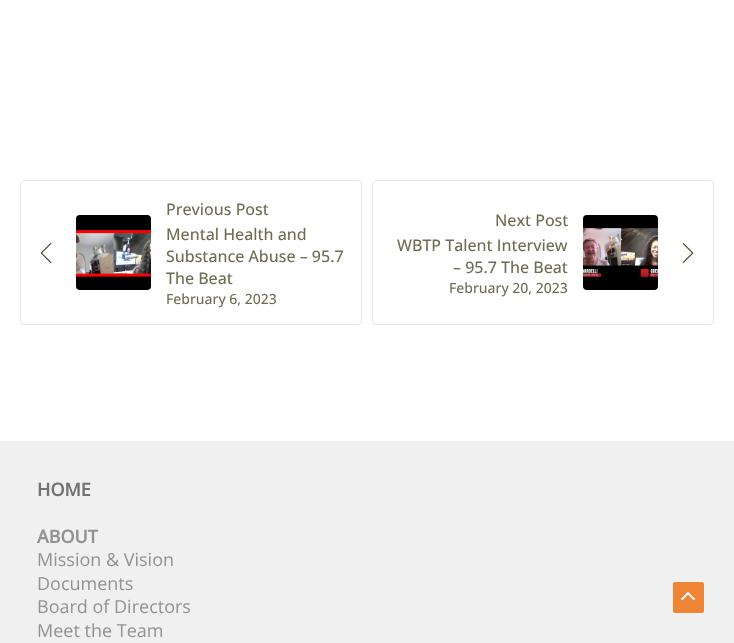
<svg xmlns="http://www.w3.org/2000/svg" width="734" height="643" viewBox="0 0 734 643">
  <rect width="100%" height="100%" fill="#fff"/>
  <rect x="20.5" y="180.5" width="341" height="144" rx="3.5" fill="none" stroke="#e5e5e5"/>
  <image x="40" y="243" width="12" height="20" href="img/1.png"/>
  <image x="76" y="215" width="75" height="75" href="img/2.png"/>
  <rect x="372.5" y="180.5" width="341" height="144" rx="3.5" fill="none" stroke="#e5e5e5"/>
  <image x="583" y="215" width="75" height="75" href="img/3.png"/>
  <image x="682" y="243" width="12" height="20" href="img/4.png"/>
  <path d="M0 441h734v202H0z" fill="#f1f0f0"/>
  <rect x="673" y="582" width="31" height="31" rx="2" fill="#ee8435"/>
  <image x="681" y="591" width="15" height="10" href="img/5.png"/>
  <g font-family="Open Sans" font-size="16" font-weight="500" fill="#6f6c53">
    <text x="166" y="215">Previous Post</text>
    <text x="166" y="240">Mental Health and</text>
    <text x="166" y="262">Substance Abuse – 95.7</text>
    <text x="166" y="284">The Beat</text>
  </g>
  <text x="166" y="304" font-family="Open Sans" font-size="14" font-weight="500" fill="#6f6c53">February 6, 2023</text>
  <g font-family="Open Sans" font-size="16" font-weight="500" fill="#6f6c53">
    <text x="495" y="226">Next Post</text>
    <text x="397" y="251">WBTP Talent Interview</text>
    <text x="453" y="273">– 95.7 The Beat</text>
  </g>
  <text x="449" y="293" font-family="Open Sans" font-size="14" font-weight="500" fill="#6f6c53">February 20, 2023</text>
  <text x="37" y="496" font-family="Open Sans" font-size="18" font-weight="bold" fill="#727274">HOME</text>
  <text x="37" y="543" font-family="Open Sans" font-size="18" font-weight="bold" fill="#919294">ABOUT</text>
  <g font-family="Open Sans" font-size="18" fill="#919294">
    <text x="37" y="566">Mission &amp; Vision</text>
    <text x="37" y="590">Documents</text>
    <text x="37" y="613">Board of Directors</text>
    <text x="37" y="637">Meet the Team</text>
  </g>
</svg>
